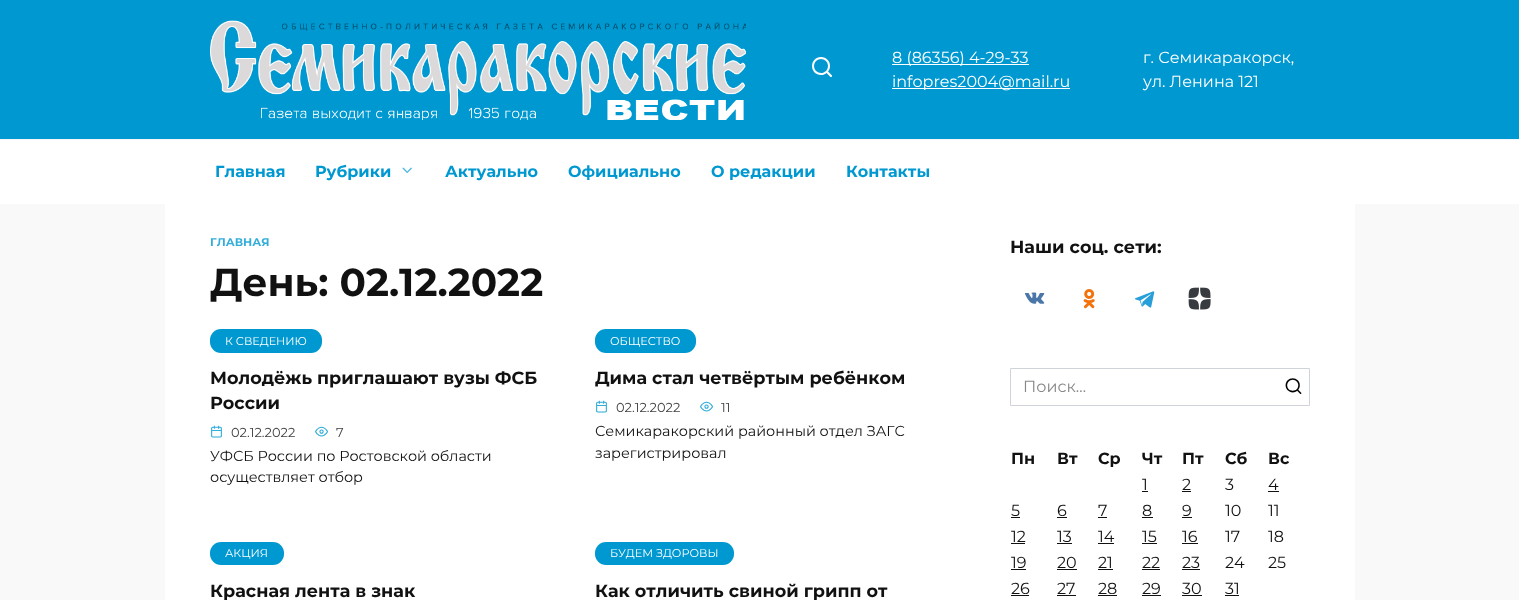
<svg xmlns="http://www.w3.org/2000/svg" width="1519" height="600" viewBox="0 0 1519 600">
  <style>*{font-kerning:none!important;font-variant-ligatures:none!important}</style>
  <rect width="100%" height="100%" fill="#f9f9f9"/>
  <path d="M0 0h1519v139H0z" fill="#0098d0"/>
  <path d="M0 139h1519v1H0z" fill="#f2f5f9"/>
  <image x="210" y="20" width="536" height="100" href="img/1.png"/>
  <path d="M892 64h137v1H892z" fill="#fff"/>
  <path d="M892 88h178v1H892z" fill="#fff"/>
  <path d="M0 140h1519v64H0z" fill="#fff"/>
  <path d="M165 204h1190v396H165z" fill="#fff"/>
  <rect x="210" y="329" width="112" height="24" rx="11" fill="#0098d0"/>
  <rect x="595" y="329" width="101" height="24" rx="11" fill="#0098d0"/>
  <rect x="210" y="542" width="74" height="23" rx="11" fill="#0098d0"/>
  <rect x="595" y="542" width="139" height="23" rx="11" fill="#0098d0"/>
  <image x="1024" y="292" width="21" height="12" href="img/2.png"/>
  <image x="1083" y="289" width="12" height="20" href="img/3.png"/>
  <image x="1134" y="291" width="21" height="17" href="img/4.png"/>
  <image x="1188" y="287" width="23" height="23" href="img/5.png"/>
  <path d="M1010.5 368.5h299v37H1010.5z" fill="none" stroke="#ced4da"/>
  <path d="M1142 491h6v1H1142z" fill="#111"/>
  <path d="M1182 491h9v1H1182z" fill="#111"/>
  <path d="M1268 491h11v1H1268z" fill="#111"/>
  <path d="M1011 517h9v1H1011z" fill="#111"/>
  <path d="M1057 517h10v1H1057z" fill="#111"/>
  <path d="M1098 517h9v1H1098z" fill="#111"/>
  <path d="M1142 517h11v1H1142z" fill="#111"/>
  <path d="M1182 517h10v1H1182z" fill="#111"/>
  <path d="M1011 543h14v1H1011z" fill="#111"/>
  <path d="M1057 543h15v1H1057z" fill="#111"/>
  <path d="M1098 543h16v1H1098z" fill="#111"/>
  <path d="M1142 543h15v1H1142z" fill="#111"/>
  <path d="M1182 543h16v1H1182z" fill="#111"/>
  <path d="M1011 569h15v1H1011z" fill="#111"/>
  <path d="M1057 569h20v1H1057z" fill="#111"/>
  <path d="M1098 569h15v1H1098z" fill="#111"/>
  <path d="M1142 569h18v1H1142z" fill="#111"/>
  <path d="M1182 569h18v1H1182z" fill="#111"/>
  <path d="M1011 595h18v1H1011z" fill="#111"/>
  <path d="M1057 595h19v1H1057z" fill="#111"/>
  <path d="M1098 595h19v1H1098z" fill="#111"/>
  <path d="M1142 595h19v1H1142z" fill="#111"/>
  <path d="M1182 595h20v1H1182z" fill="#111"/>
  <path d="M1225 595h14v1H1225z" fill="#111"/>
  <text x="810" y="77" font-family="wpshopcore" font-size="24" fill="#fff">🔍</text>
  <g font-family="Montserrat" font-size="16" fill="#fff">
    <text x="892" y="63">8 (86356) 4-29-33</text>
    <text x="892" y="87">infopres2004@mail.ru</text>
    <text x="1143" y="63">г. Семикаракорск,</text>
    <text x="1143" y="87">ул. Ленина 121</text>
  </g>
  <g font-family="Montserrat" font-size="16" font-weight="bold" fill="#0098d0">
    <text x="215" y="177">Главная</text>
    <text x="315" y="177">Рубрики</text>
  </g>
  <text x="399" y="177" font-family="wpshopcore" font-size="16" fill="#4db7de">﹀</text>
  <g font-family="Montserrat" font-size="16" font-weight="bold" fill="#0098d0">
    <text x="445" y="177">Актуально</text>
    <text x="568" y="177">Официально</text>
    <text x="711" y="177">О редакции</text>
    <text x="846" y="177">Контакты</text>
  </g>
  <text x="210" y="246" font-family="Montserrat" font-size="11.25" font-weight="bold" fill="#33add9">ГЛАВНАЯ</text>
  <text x="210" y="296" font-family="Montserrat" font-size="39" font-weight="bold" fill="#111">День: 02.12.2022</text>
  <text x="225" y="345" font-family="Montserrat" font-size="11.25" fill="#fff">К СВЕДЕНИЮ</text>
  <g font-family="Montserrat" font-size="17.6" font-weight="bold" fill="#111">
    <text x="210" y="384">Молодёжь приглашают вузы ФСБ</text>
    <text x="210" y="409">России</text>
  </g>
  <text x="210" y="437" font-family="wpshopcore" font-size="13" fill="#33add9">📅</text>
  <text x="231" y="437" font-family="Montserrat" font-size="13" fill="#414141">02.12.2022</text>
  <text x="315" y="437" font-family="wpshopcore" font-size="13" fill="#33add9">👀</text>
  <text x="336" y="437" font-family="Montserrat" font-size="13" fill="#414141">7</text>
  <g font-family="Montserrat" font-size="14.4" fill="#111">
    <text x="210" y="461">УФСБ России по Ростовской области</text>
    <text x="210" y="482">осуществляет отбор</text>
  </g>
  <text x="610" y="345" font-family="Montserrat" font-size="11.25" fill="#fff">ОБЩЕСТВО</text>
  <text x="595" y="384" font-family="Montserrat" font-size="17.6" font-weight="bold" fill="#111">Дима стал четвёртым ребёнком</text>
  <text x="595" y="412" font-family="wpshopcore" font-size="13" fill="#33add9">📅</text>
  <text x="616" y="412" font-family="Montserrat" font-size="13" fill="#414141">02.12.2022</text>
  <text x="700" y="412" font-family="wpshopcore" font-size="13" fill="#33add9">👀</text>
  <text x="721" y="412" font-family="Montserrat" font-size="13" fill="#414141">11</text>
  <g font-family="Montserrat" font-size="14.4" fill="#111">
    <text x="595" y="436">Семикаракорский районный отдел ЗАГС</text>
    <text x="595" y="458">зарегистрировал</text>
  </g>
  <text x="225" y="557" font-family="Montserrat" font-size="11.25" fill="#fff">АКЦИЯ</text>
  <text x="210" y="597" font-family="Montserrat" font-size="17.6" font-weight="bold" fill="#111">Красная лента в знак</text>
  <text x="610" y="557" font-family="Montserrat" font-size="11.25" fill="#fff">БУДЕМ ЗДОРОВЫ</text>
  <g font-family="Montserrat" font-size="17.6" font-weight="bold" fill="#111">
    <text x="595" y="597">Как отличить свиной грипп от</text>
    <text x="1010" y="253">Наши соц. сети:</text>
  </g>
  <text x="1023" y="392" font-family="Montserrat" font-size="16" fill="#888">Поиск…</text>
  <text x="1284" y="394" font-family="wpshopcore" font-size="19" fill="#000">🔍</text>
  <g font-family="Montserrat" font-size="16" font-weight="bold" fill="#111">
    <text x="1011" y="464">Пн</text>
    <text x="1057" y="464">Вт</text>
    <text x="1098" y="464">Ср</text>
    <text x="1142" y="464">Чт</text>
    <text x="1182" y="464">Пт</text>
    <text x="1225" y="464">Сб</text>
    <text x="1268" y="464">Вс</text>
  </g>
  <g font-family="Montserrat" font-size="16" fill="#111">
    <text x="1142" y="490">1</text>
    <text x="1182" y="490">2</text>
    <text x="1225" y="490">3</text>
    <text x="1268" y="490">4</text>
    <text x="1011" y="516">5</text>
    <text x="1057" y="516">6</text>
    <text x="1098" y="516">7</text>
    <text x="1142" y="516">8</text>
    <text x="1182" y="516">9</text>
    <text x="1225" y="516">10</text>
    <text x="1268" y="516">11</text>
    <text x="1011" y="542">12</text>
    <text x="1057" y="542">13</text>
    <text x="1098" y="542">14</text>
    <text x="1142" y="542">15</text>
    <text x="1182" y="542">16</text>
    <text x="1225" y="542">17</text>
    <text x="1268" y="542">18</text>
    <text x="1011" y="568">19</text>
    <text x="1057" y="568">20</text>
    <text x="1098" y="568">21</text>
    <text x="1142" y="568">22</text>
    <text x="1182" y="568">23</text>
    <text x="1225" y="568">24</text>
    <text x="1268" y="568">25</text>
    <text x="1011" y="594">26</text>
    <text x="1057" y="594">27</text>
    <text x="1098" y="594">28</text>
    <text x="1142" y="594">29</text>
    <text x="1182" y="594">30</text>
    <text x="1225" y="594">31</text>
  </g>
</svg>
